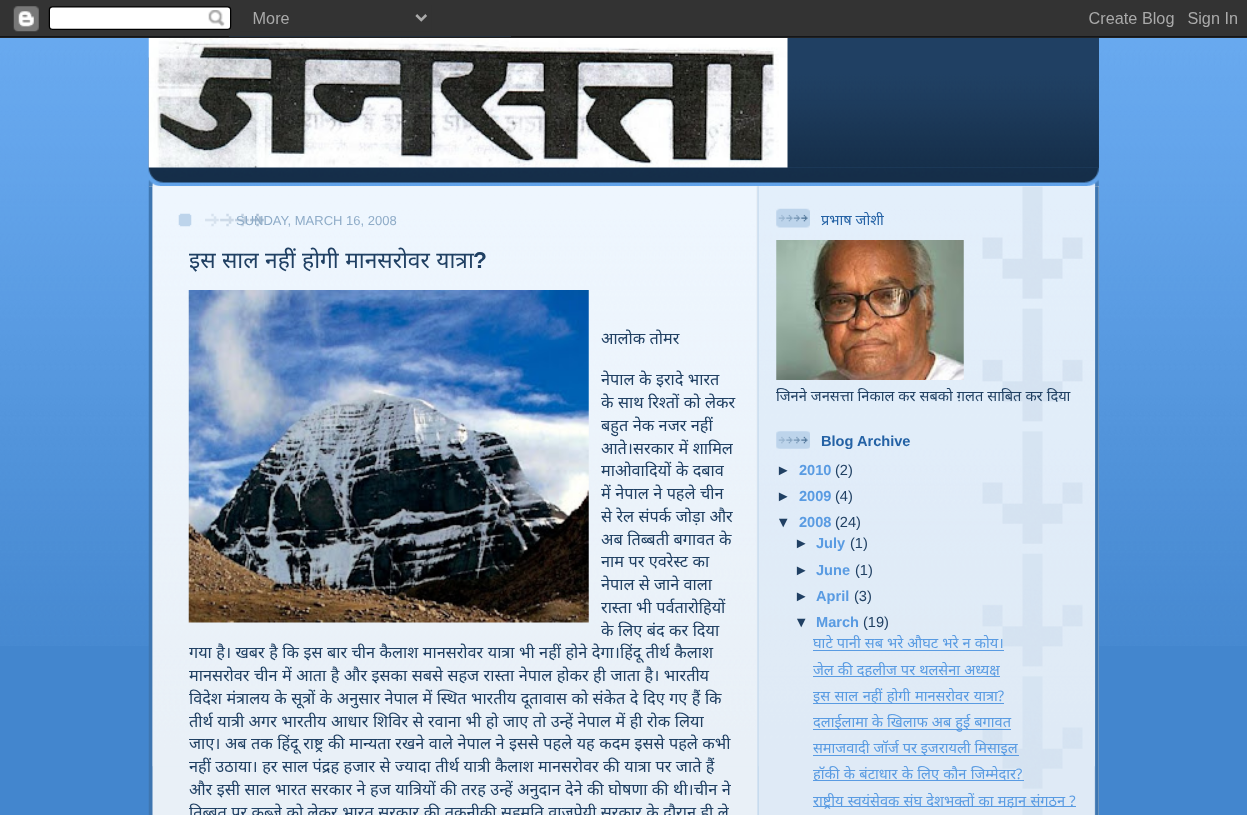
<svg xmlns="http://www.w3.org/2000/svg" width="1247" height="815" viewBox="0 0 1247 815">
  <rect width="100%" height="100%" fill="#4386ce"/>
  <image x="0" y="36" width="1247" height="610" href="img/1.png"/>
  <image x="0" y="0" width="1247" height="38" href="img/2.png"/>
  <image x="148" y="167" width="951" height="20" href="img/3.png"/>
  <path d="M149 38h950v130H149z" fill="#204063"/>
  <image x="148" y="57" width="951" height="111" href="img/4.png"/>
  <image x="148" y="38" width="640" height="130" href="img/5.png"/>
  <path d="M149 186h950v629H149z" fill="#f7f0e9"/>
  <image x="148" y="186" width="951" height="629" href="img/6.png"/>
  <image x="152" y="186" width="604" height="581" href="img/7.png"/>
  <image x="178" y="213" width="14" height="14" href="img/8.png"/>
  <image x="205" y="213" width="59" height="14" href="img/9.png"/>
  <image x="188" y="290" width="401" height="333" href="img/10.png"/>
  <image x="758" y="186" width="337" height="581" href="img/11.png"/>
  <image x="982" y="186" width="101" height="629" href="img/12.png"/>
  <image x="776" y="208" width="34" height="20" href="img/13.png"/>
  <image x="776" y="240" width="188" height="140" href="img/14.png"/>
  <image x="776" y="431" width="34" height="18" href="img/15.png"/>
  <path d="M813 650h191v1H813z" fill="#599be2"/>
  <path d="M813 676h187v1H813z" fill="#599be2"/>
  <path d="M813 703h191v1H813z" fill="#599be2"/>
  <path d="M813 729h198v1H813z" fill="#599be2"/>
  <path d="M813 755h206v1H813z" fill="#599be2"/>
  <path d="M813 780h211v1H813z" fill="#599be2"/>
  <path d="M813 806h263v1H813z" fill="#599be2"/>
  <text x="236" y="225" font-family="Liberation Sans" font-size="13" fill="#8facc8">SUNDAY, MARCH 16, 2008</text>
  <text x="189" y="268" word-spacing="0.5" font-family="Noto Sans" font-size="22.75" fill="#204063">इस साल नहीं होगी मानसरोवर यात्रा</text>
  <text x="473" y="268" font-family="Liberation Sans" font-size="22.75" font-weight="bold" fill="#204063">?</text>
  <g font-family="Noto Sans" font-size="16.25" fill="#204063">
    <text x="601" y="344">आलोक तोमर</text>
    <text x="601" y="385" word-spacing="0.25">नेपाल के इरादे भारत</text>
    <text x="601" y="408" word-spacing="0.25">के साथ रिश्तों को लेकर</text>
    <text x="601" y="431" word-spacing="0.25">बहुत नेक नजर नहीं</text>
    <text x="601" y="454" word-spacing="0.25">आते।सरकार में शामिल</text>
    <text x="601" y="476" word-spacing="0.25">माओवादियों के दबाव</text>
    <text x="601" y="499" word-spacing="0.25">में नेपाल ने पहले चीन</text>
    <text x="601" y="522" word-spacing="0.25">से रेल संपर्क जोड़ा और</text>
    <text x="601" y="545" word-spacing="0.25">अब तिब्बती बगावत के</text>
    <text x="601" y="567" word-spacing="0.25">नाम पर एवरेस्ट का</text>
    <text x="601" y="590">नेपाल से जाने वाला</text>
    <text x="601" y="613" word-spacing="0.25">रास्ता भी पर्वतारोहियों</text>
    <text x="601" y="636" word-spacing="0.25">के लिए बंद कर दिया</text>
    <text x="189" y="658" word-spacing="0.25">गया है। खबर है कि इस बार चीन कैलाश मानसरोवर यात्रा भी नहीं होने देगा।हिंदू तीर्थ कैलाश</text>
    <text x="189" y="681" word-spacing="0.25">मानसरोवर चीन में आता है और इसका सबसे सहज रास्ता नेपाल होकर ही जाता है। भारतीय</text>
    <text x="189" y="704" word-spacing="0.25">विदेश मंत्रालय के सूत्रों के अनुसार नेपाल में स्थित भारतीय दूतावास को संकेत दे दिए गए हैं कि</text>
    <text x="189" y="727" word-spacing="0.25">तीर्थ यात्री अगर भारतीय आधार शिविर से रवाना भी हो जाए तो उन्हें नेपाल में ही रोक लिया</text>
    <text x="189" y="749" word-spacing="0.25">जाए। अब तक हिंदू राष्ट्र की मान्यता रखने वाले नेपाल ने इससे पहले यह कदम इससे पहले कभी</text>
    <text x="189" y="772" word-spacing="0.25">नहीं उठाया। हर साल पंद्रह हजार से ज्यादा तीर्थ यात्री कैलाश मानसरोवर की यात्रा पर जाते हैं</text>
    <text x="189" y="795" word-spacing="0.25">और इसी साल भारत सरकार ने हज यात्रियों की तरह उन्हें अनुदान देने की घोषणा की थी।चीन ने</text>
    <text x="189" y="818" word-spacing="0.25">तिब्बत पर कब्जे को लेकर भारत सरकार की तकनीकी सहमति वाजपेयी सरकार के दौरान ही ले</text>
  </g>
  <text x="821" y="225" font-family="Noto Sans" font-size="14.6" fill="#2462a5">प्रभाष जोशी</text>
  <text x="776" y="401" word-spacing="0.25" font-family="Noto Sans" font-size="14.6" fill="#204063">जिनने जनसत्ता निकाल कर सबको ग़लत साबित कर दिया</text>
  <text x="821" y="446" font-family="Liberation Sans" font-size="14.6" font-weight="bold" fill="#2462a5">Blog Archive</text>
  <text x="776" y="475" font-family="Liberation Sans" font-size="14.6" font-weight="bold" fill="#204063">►</text>
  <text x="799" y="475" font-family="Liberation Sans" font-size="14.6" font-weight="bold" fill="#599be2">2010</text>
  <text x="835" y="475" font-family="Liberation Sans" font-size="14.6" fill="#204063">(2)</text>
  <text x="776" y="501" font-family="Liberation Sans" font-size="14.6" font-weight="bold" fill="#204063">►</text>
  <text x="799" y="501" font-family="Liberation Sans" font-size="14.6" font-weight="bold" fill="#599be2">2009</text>
  <text x="835" y="501" font-family="Liberation Sans" font-size="14.6" fill="#204063">(4)</text>
  <text x="776" y="527" font-family="Liberation Sans" font-size="14.6" font-weight="bold" fill="#204063">▼</text>
  <text x="799" y="527" font-family="Liberation Sans" font-size="14.6" font-weight="bold" fill="#599be2">2008</text>
  <text x="835" y="527" font-family="Liberation Sans" font-size="14.6" fill="#204063">(24)</text>
  <text x="794" y="548" font-family="Liberation Sans" font-size="14.6" font-weight="bold" fill="#204063">►</text>
  <text x="816" y="548" font-family="Liberation Sans" font-size="14.6" font-weight="bold" fill="#599be2">July</text>
  <text x="850" y="548" font-family="Liberation Sans" font-size="14.6" fill="#204063">(1)</text>
  <text x="794" y="575" font-family="Liberation Sans" font-size="14.6" font-weight="bold" fill="#204063">►</text>
  <text x="816" y="575" font-family="Liberation Sans" font-size="14.6" font-weight="bold" fill="#599be2">June</text>
  <text x="855" y="575" font-family="Liberation Sans" font-size="14.6" fill="#204063">(1)</text>
  <text x="794" y="601" font-family="Liberation Sans" font-size="14.6" font-weight="bold" fill="#204063">►</text>
  <text x="816" y="601" font-family="Liberation Sans" font-size="14.6" font-weight="bold" fill="#599be2">April</text>
  <text x="854" y="601" font-family="Liberation Sans" font-size="14.6" fill="#204063">(3)</text>
  <text x="794" y="627" font-family="Liberation Sans" font-size="14.6" font-weight="bold" fill="#204063">▼</text>
  <text x="816" y="627" font-family="Liberation Sans" font-size="14.6" font-weight="bold" fill="#599be2">March</text>
  <text x="863" y="627" font-family="Liberation Sans" font-size="14.6" fill="#204063">(19)</text>
  <g font-family="Noto Sans" font-size="14.6" fill="#599be2">
    <text x="813" y="648" word-spacing="0.25">घाटे पानी सब भरे औघट भरे न कोय।</text>
    <text x="813" y="675" word-spacing="0.25">जेल की दहलीज पर थलसेना अध्यक्ष</text>
    <text x="813" y="701" word-spacing="0.75">इस साल नहीं होगी मानसरोवर यात्रा?</text>
    <text x="813" y="727" word-spacing="0.25">दलाईलामा के खिलाफ अब हुई बगावत</text>
    <text x="813" y="753">समाजवादी जॉर्ज पर इजरायली मिसाइल</text>
    <text x="813" y="779" word-spacing="0.5">हॉकी के बंटाधार के लिए कौन जिम्मेदार?</text>
    <text x="813" y="806" word-spacing="0.5">राष्ट्रीय स्वयंसेवक संघ देशभक्तों का महान संगठन ?</text>
  </g>
</svg>
